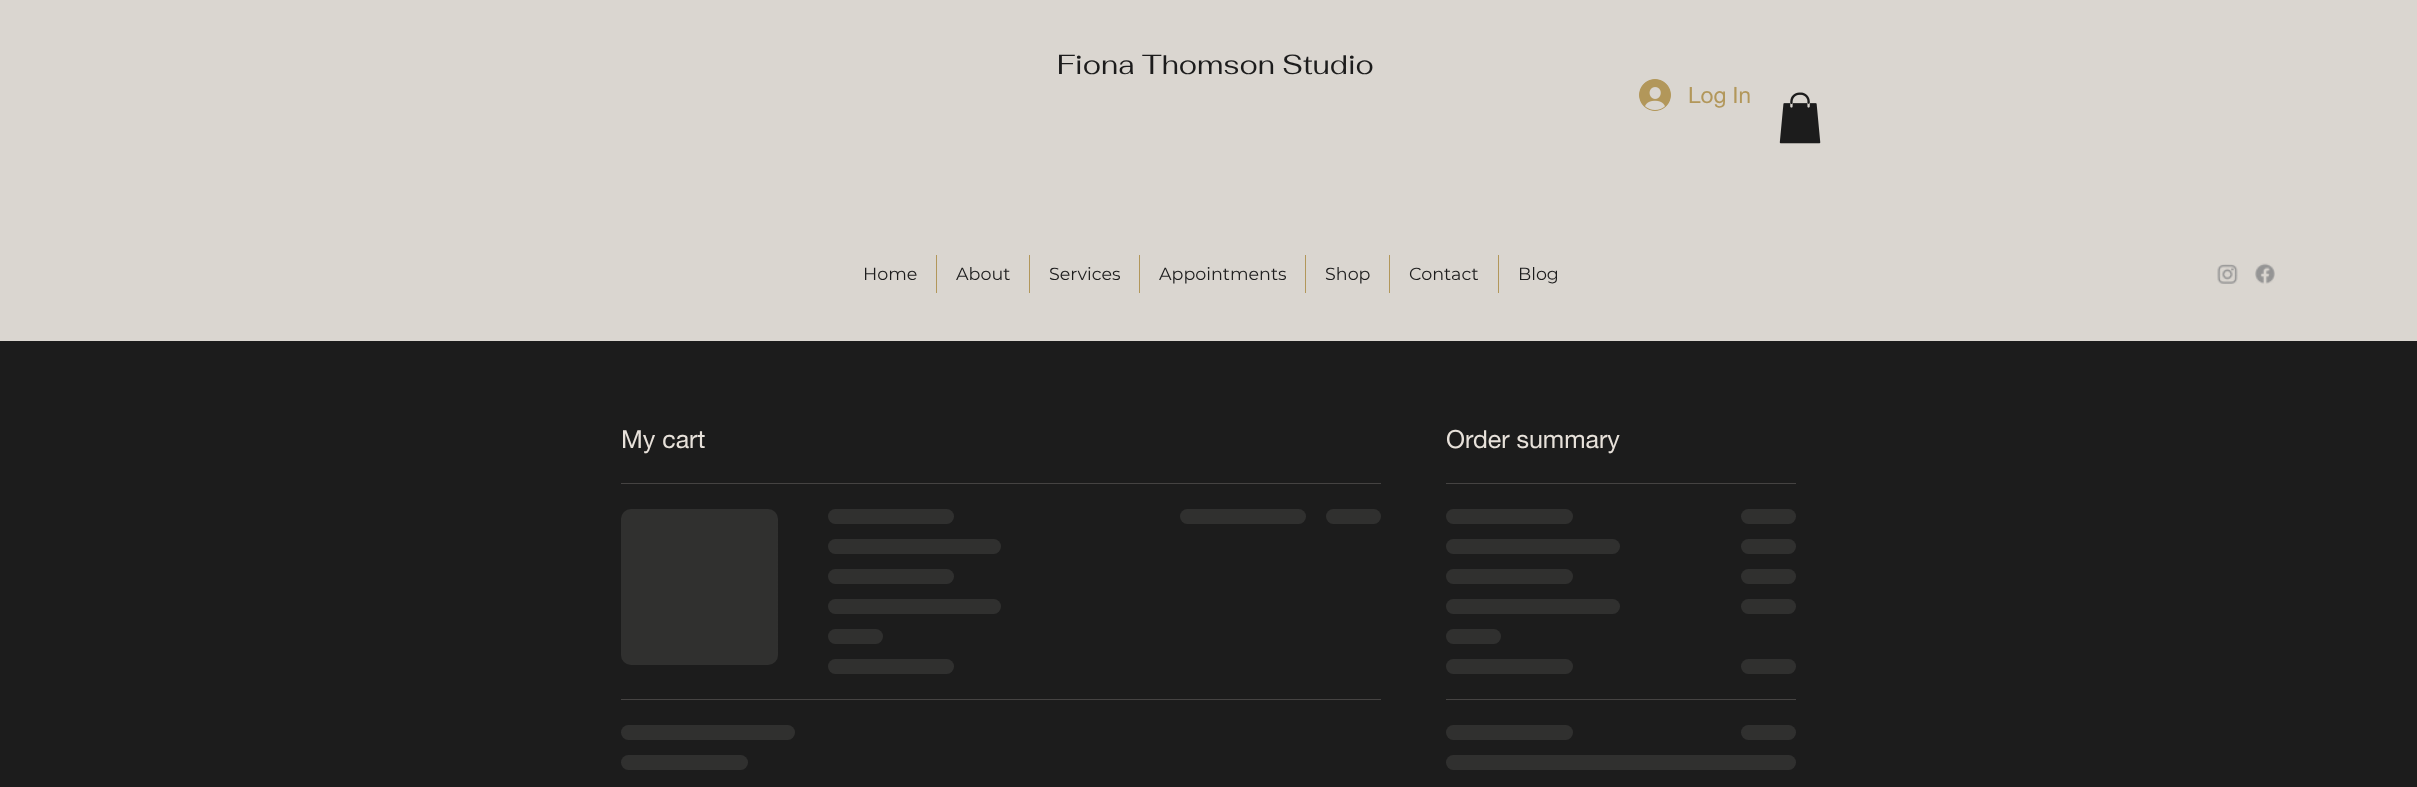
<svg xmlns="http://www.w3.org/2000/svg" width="2417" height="787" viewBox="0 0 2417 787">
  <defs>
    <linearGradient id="g1" gradientUnits="userSpaceOnUse" x1="621" y1="587" x2="1246" y2="587"><stop offset="0.25" stop-color="#30302f"/><stop offset="0.37" stop-color="#454342"/><stop offset="0.63" stop-color="#30302f"/></linearGradient>
    <linearGradient id="g2" gradientUnits="userSpaceOnUse" x1="828" y1="516" x2="1333" y2="516"><stop offset="0.25" stop-color="#30302f"/><stop offset="0.37" stop-color="#454342"/><stop offset="0.63" stop-color="#30302f"/></linearGradient>
    <linearGradient id="g3" gradientUnits="userSpaceOnUse" x1="828" y1="546" x2="1523" y2="546"><stop offset="0.25" stop-color="#30302f"/><stop offset="0.37" stop-color="#454342"/><stop offset="0.63" stop-color="#30302f"/></linearGradient>
    <linearGradient id="g4" gradientUnits="userSpaceOnUse" x1="828" y1="576" x2="1333" y2="576"><stop offset="0.25" stop-color="#30302f"/><stop offset="0.37" stop-color="#454342"/><stop offset="0.63" stop-color="#30302f"/></linearGradient>
    <linearGradient id="g5" gradientUnits="userSpaceOnUse" x1="828" y1="606" x2="1523" y2="606"><stop offset="0.25" stop-color="#30302f"/><stop offset="0.37" stop-color="#454342"/><stop offset="0.63" stop-color="#30302f"/></linearGradient>
    <linearGradient id="g6" gradientUnits="userSpaceOnUse" x1="828" y1="636" x2="1048" y2="636"><stop offset="0.25" stop-color="#30302f"/><stop offset="0.37" stop-color="#454342"/><stop offset="0.63" stop-color="#30302f"/></linearGradient>
    <linearGradient id="g7" gradientUnits="userSpaceOnUse" x1="828" y1="666" x2="1333" y2="666"><stop offset="0.25" stop-color="#30302f"/><stop offset="0.37" stop-color="#454342"/><stop offset="0.63" stop-color="#30302f"/></linearGradient>
    <linearGradient id="g8" gradientUnits="userSpaceOnUse" x1="1180" y1="516" x2="1685" y2="516"><stop offset="0.25" stop-color="#30302f"/><stop offset="0.37" stop-color="#454342"/><stop offset="0.63" stop-color="#30302f"/></linearGradient>
    <linearGradient id="g9" gradientUnits="userSpaceOnUse" x1="1326" y1="516" x2="1546" y2="516"><stop offset="0.25" stop-color="#30302f"/><stop offset="0.37" stop-color="#454342"/><stop offset="0.63" stop-color="#30302f"/></linearGradient>
    <linearGradient id="g10" gradientUnits="userSpaceOnUse" x1="621" y1="733" x2="1316" y2="733"><stop offset="0.25" stop-color="#30302f"/><stop offset="0.37" stop-color="#454342"/><stop offset="0.63" stop-color="#30302f"/></linearGradient>
    <linearGradient id="g11" gradientUnits="userSpaceOnUse" x1="621" y1="763" x2="1126" y2="763"><stop offset="0.25" stop-color="#30302f"/><stop offset="0.37" stop-color="#454342"/><stop offset="0.63" stop-color="#30302f"/></linearGradient>
    <linearGradient id="g12" gradientUnits="userSpaceOnUse" x1="1446" y1="516" x2="1951" y2="516"><stop offset="0.25" stop-color="#30302f"/><stop offset="0.37" stop-color="#454342"/><stop offset="0.63" stop-color="#30302f"/></linearGradient>
    <linearGradient id="g13" gradientUnits="userSpaceOnUse" x1="1741" y1="516" x2="1961" y2="516"><stop offset="0.25" stop-color="#30302f"/><stop offset="0.37" stop-color="#454342"/><stop offset="0.63" stop-color="#30302f"/></linearGradient>
    <linearGradient id="g14" gradientUnits="userSpaceOnUse" x1="1446" y1="546" x2="2141" y2="546"><stop offset="0.25" stop-color="#30302f"/><stop offset="0.37" stop-color="#454342"/><stop offset="0.63" stop-color="#30302f"/></linearGradient>
    <linearGradient id="g15" gradientUnits="userSpaceOnUse" x1="1741" y1="546" x2="1961" y2="546"><stop offset="0.25" stop-color="#30302f"/><stop offset="0.37" stop-color="#454342"/><stop offset="0.63" stop-color="#30302f"/></linearGradient>
    <linearGradient id="g16" gradientUnits="userSpaceOnUse" x1="1446" y1="576" x2="1951" y2="576"><stop offset="0.25" stop-color="#30302f"/><stop offset="0.37" stop-color="#454342"/><stop offset="0.63" stop-color="#30302f"/></linearGradient>
    <linearGradient id="g17" gradientUnits="userSpaceOnUse" x1="1741" y1="576" x2="1961" y2="576"><stop offset="0.25" stop-color="#30302f"/><stop offset="0.37" stop-color="#454342"/><stop offset="0.63" stop-color="#30302f"/></linearGradient>
    <linearGradient id="g18" gradientUnits="userSpaceOnUse" x1="1446" y1="606" x2="2141" y2="606"><stop offset="0.25" stop-color="#30302f"/><stop offset="0.37" stop-color="#454342"/><stop offset="0.63" stop-color="#30302f"/></linearGradient>
    <linearGradient id="g19" gradientUnits="userSpaceOnUse" x1="1741" y1="606" x2="1961" y2="606"><stop offset="0.25" stop-color="#30302f"/><stop offset="0.37" stop-color="#454342"/><stop offset="0.63" stop-color="#30302f"/></linearGradient>
    <linearGradient id="g20" gradientUnits="userSpaceOnUse" x1="1446" y1="636" x2="1666" y2="636"><stop offset="0.25" stop-color="#30302f"/><stop offset="0.37" stop-color="#454342"/><stop offset="0.63" stop-color="#30302f"/></linearGradient>
    <linearGradient id="g21" gradientUnits="userSpaceOnUse" x1="1446" y1="666" x2="1951" y2="666"><stop offset="0.25" stop-color="#30302f"/><stop offset="0.37" stop-color="#454342"/><stop offset="0.63" stop-color="#30302f"/></linearGradient>
    <linearGradient id="g22" gradientUnits="userSpaceOnUse" x1="1741" y1="666" x2="1961" y2="666"><stop offset="0.25" stop-color="#30302f"/><stop offset="0.37" stop-color="#454342"/><stop offset="0.63" stop-color="#30302f"/></linearGradient>
    <linearGradient id="g23" gradientUnits="userSpaceOnUse" x1="1446" y1="733" x2="1951" y2="733"><stop offset="0.25" stop-color="#30302f"/><stop offset="0.37" stop-color="#454342"/><stop offset="0.63" stop-color="#30302f"/></linearGradient>
    <linearGradient id="g24" gradientUnits="userSpaceOnUse" x1="1741" y1="733" x2="1961" y2="733"><stop offset="0.25" stop-color="#30302f"/><stop offset="0.37" stop-color="#454342"/><stop offset="0.63" stop-color="#30302f"/></linearGradient>
    <linearGradient id="g25" gradientUnits="userSpaceOnUse" x1="1446" y1="763" x2="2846" y2="763"><stop offset="0.25" stop-color="#30302f"/><stop offset="0.37" stop-color="#454342"/><stop offset="0.63" stop-color="#30302f"/></linearGradient>
  </defs>
  <rect width="100%" height="100%" fill="#1c1c1c"/>
  <path d="M0 0h2417v341H0z" fill="#dad6d0"/>
  <image x="1639" y="79" width="32" height="32" href="img/1.png"/>
  <image x="1779" y="92" width="42" height="52" href="img/2.png"/>
  <path d="M936 255h1v38H936z" fill="#b2975a"/>
  <path d="M1029 255h1v38H1029z" fill="#b2975a"/>
  <path d="M1139 255h1v38H1139z" fill="#b2975a"/>
  <path d="M1305 255h1v38H1305z" fill="#b2975a"/>
  <path d="M1389 255h1v38H1389z" fill="#b2975a"/>
  <path d="M1498 255h1v38H1498z" fill="#b2975a"/>
  <image x="2217" y="264" width="21" height="20" href="img/3.png"/>
  <image x="2255" y="263" width="20" height="21" href="img/4.png"/>
  <path d="M621 483h760v1H621z" fill="#454342"/>
  <rect x="621" y="509" width="157" height="156" rx="10" fill="url(#g1)"/>
  <rect x="828" y="509" width="126" height="15" rx="7.5" fill="url(#g2)"/>
  <rect x="828" y="539" width="173" height="15" rx="7.5" fill="url(#g3)"/>
  <rect x="828" y="569" width="126" height="15" rx="7.5" fill="url(#g4)"/>
  <rect x="828" y="599" width="173" height="15" rx="7.5" fill="url(#g5)"/>
  <rect x="828" y="629" width="55" height="15" rx="7.5" fill="url(#g6)"/>
  <rect x="828" y="659" width="126" height="15" rx="7.5" fill="url(#g7)"/>
  <rect x="1180" y="509" width="126" height="15" rx="7.5" fill="url(#g8)"/>
  <rect x="1326" y="509" width="55" height="15" rx="7.5" fill="url(#g9)"/>
  <path d="M621 699h760v1H621z" fill="#454342"/>
  <rect x="621" y="725" width="174" height="15" rx="7.5" fill="url(#g10)"/>
  <rect x="621" y="755" width="127" height="15" rx="7.5" fill="url(#g11)"/>
  <path d="M1446 483h350v1H1446z" fill="#454342"/>
  <rect x="1446" y="509" width="127" height="15" rx="7.5" fill="url(#g12)"/>
  <rect x="1741" y="509" width="55" height="15" rx="7.5" fill="url(#g13)"/>
  <rect x="1446" y="539" width="174" height="15" rx="7.5" fill="url(#g14)"/>
  <rect x="1741" y="539" width="55" height="15" rx="7.5" fill="url(#g15)"/>
  <rect x="1446" y="569" width="127" height="15" rx="7.5" fill="url(#g16)"/>
  <rect x="1741" y="569" width="55" height="15" rx="7.5" fill="url(#g17)"/>
  <rect x="1446" y="599" width="174" height="15" rx="7.5" fill="url(#g18)"/>
  <rect x="1741" y="599" width="55" height="15" rx="7.5" fill="url(#g19)"/>
  <rect x="1446" y="629" width="55" height="15" rx="7.5" fill="url(#g20)"/>
  <rect x="1446" y="659" width="127" height="15" rx="7.5" fill="url(#g21)"/>
  <rect x="1741" y="659" width="55" height="15" rx="7.5" fill="url(#g22)"/>
  <path d="M1446 699h350v1H1446z" fill="#454342"/>
  <rect x="1446" y="725" width="127" height="15" rx="7.5" fill="url(#g23)"/>
  <rect x="1741" y="725" width="55" height="15" rx="7.5" fill="url(#g24)"/>
  <rect x="1446" y="755" width="350" height="15" rx="7.5" fill="url(#g25)"/>
  <text x="1057" y="74" font-family="Fahkwang" font-size="27.5" fill="#1c1c1c">Fiona Thomson Studio</text>
  <text x="1688" y="103" font-family="helvetica neue" font-size="22.5" fill="#b2975a">Log In</text>
  <g font-family="Montserrat" font-size="17.5" fill="#1c1c1c">
    <text x="863" y="280">Home</text>
    <text x="956" y="280">About</text>
    <text x="1049" y="280">Services</text>
    <text x="1159" y="280">Appointments</text>
    <text x="1325" y="280">Shop</text>
    <text x="1409" y="280">Contact</text>
    <text x="1518" y="280">Blog</text>
  </g>
  <g font-family="helvetica neue" font-size="25" fill="#e7e1da">
    <text x="621" y="448">My cart</text>
    <text x="1446" y="448">Order summary</text>
  </g>
</svg>
